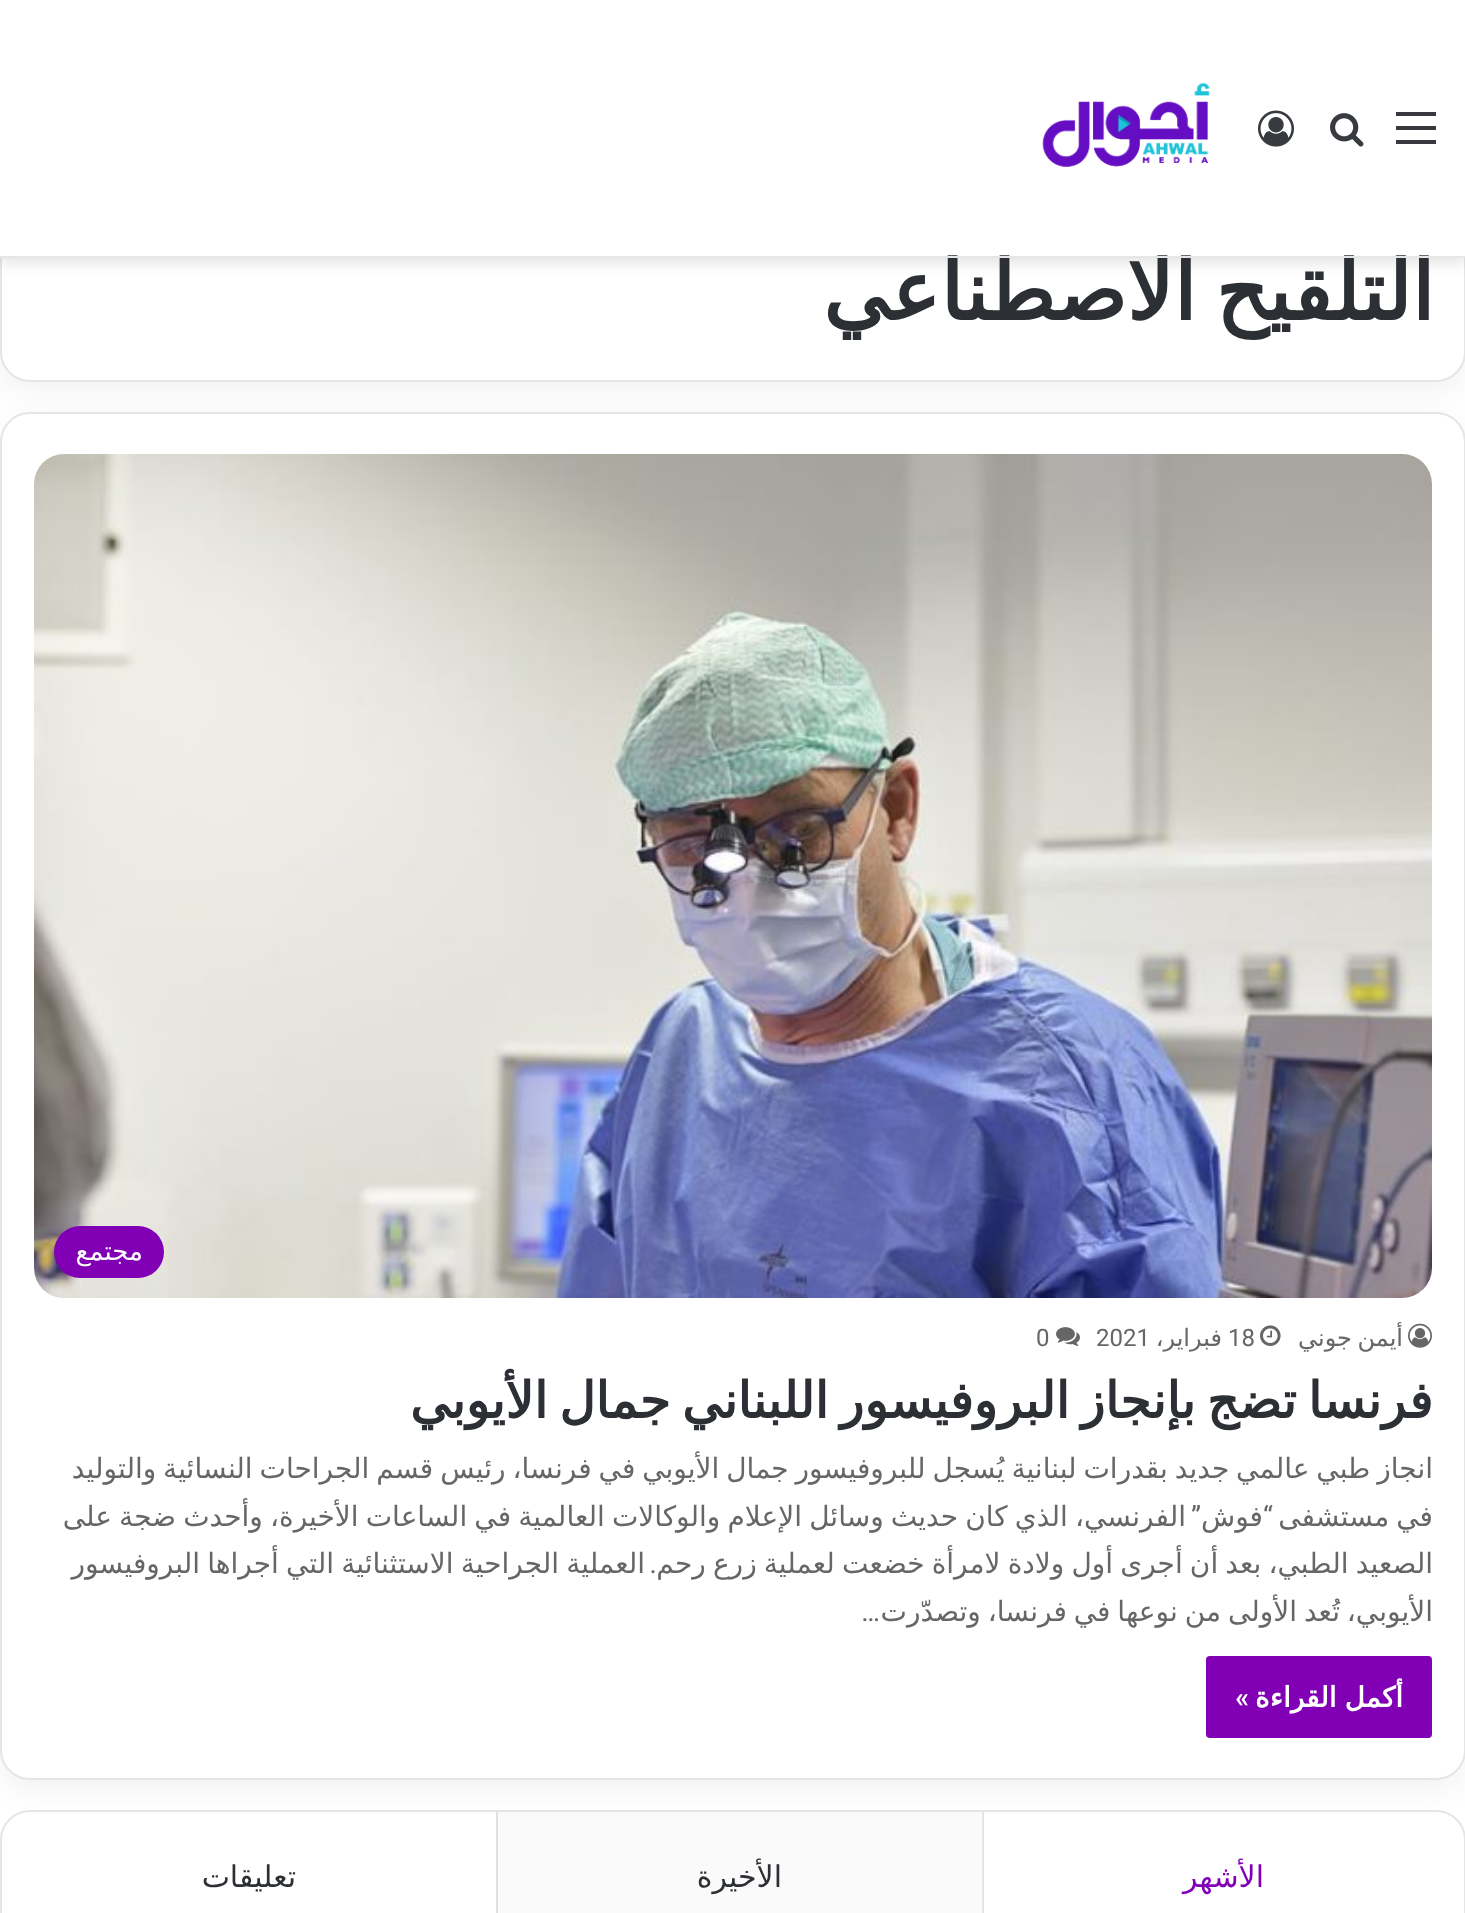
<svg xmlns="http://www.w3.org/2000/svg" width="1465" height="1913" viewBox="0 0 1465 1913">
  <rect width="100%" height="100%" fill="#fff"/>
  <rect y="112" width="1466" height="280" rx="30" fill="#0000000d" filter="blur(15px)"/>
  <rect x="1" y="103" width="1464" height="278" rx="29" fill="#fff" stroke="#e5e5e5" stroke-width="2"/>
  <path d="M0 6h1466v258H0z" fill="#0000001a" filter="blur(7px)"/>
  <path d="M0 0h1465v256H0z" fill="#fff"/>
  <path d="M1396 126h40v4H1396z" fill="#37393e"/>
  <path d="M1396 112h40v4H1396z" fill="#37393e"/>
  <path d="M1396 140h40v4H1396z" fill="#37393e"/>
  <image x="1330" y="113" width="34" height="34" href="img/1.png"/>
  <image x="1258" y="110" width="36" height="37" href="img/2.png"/>
  <image x="1042" y="82" width="168" height="85" href="img/3.png"/>
  <rect y="422" width="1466" height="1368" rx="30" fill="#0000000d" filter="blur(15px)"/>
  <rect x="1" y="413" width="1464" height="1366" rx="29" fill="#fff" stroke="#e5e5e5" stroke-width="2"/>
  <image x="34" y="454" width="1398" height="844" href="img/4.png"/>
  <rect x="54" y="1226" width="110" height="52" rx="26" fill="#8100b5"/>
  <image x="1408" y="1323" width="24" height="25" href="img/5.png"/>
  <image x="1260" y="1325" width="21" height="21" href="img/6.png"/>
  <image x="1056" y="1327" width="24" height="19" href="img/7.png"/>
  <rect x="1206" y="1656" width="226" height="82" rx="4" fill="#8100b5"/>
  <rect x="1" y="1811" width="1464" height="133" rx="29" fill="none" stroke="#e5e5e5" stroke-width="2"/>
  <path d="M982 1812H984V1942L982 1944Z" fill="#e5e5e5"/>
  <path d="M498 1812h484v101H498z" fill="#fafafa"/>
  <path d="M496 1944V1812H498V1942Z" fill="#e1e1e1"/>
  <text x="1434" y="320" word-spacing="-7" font-family="DejaVu Sans" font-size="82" font-weight="bold" direction="rtl" fill="#2c2f34">التلقيح الاصطناعي</text>
  <path d="M0 256h1465v2H0z" fill="#e6e6e6"/>
  <text x="143" y="1260" font-family="DejaVu Sans" font-size="26" direction="rtl" fill="#fff">مجتمع</text>
  <text x="1403" y="1346" word-spacing="-2" font-family="DejaVu Sans" font-size="24" direction="rtl" fill="#666">أيمن جوني</text>
  <text x="1228" y="1346" font-family="Roboto" font-size="24" fill="#666">18</text>
  <text x="1222" y="1346" font-family="DejaVu Sans" font-size="24" direction="rtl" fill="#666">فبراير،</text>
  <g font-family="Roboto" font-size="24" fill="#666">
    <text x="1096" y="1346">2021</text>
    <text x="1036" y="1346">0</text>
  </g>
  <text x="1433" y="1418" word-spacing="-4.5" font-family="DejaVu Sans" font-size="50" font-weight="bold" direction="rtl" fill="#2c2f34">فرنسا تضج بإنجاز البروفيسور اللبناني جمال الأيوبي</text>
  <text x="1433" y="1478" word-spacing="-2" font-family="DejaVu Sans" font-size="28" direction="rtl" fill="#666">انجاز طبي عالمي جديد بقدرات لبنانية يُسجل للبروفيسور جمال الأيوبي في فرنسا، رئيس قسم الجراحات النسائية والتوليد</text>
  <text x="1273" y="1526" font-family="Roboto" font-size="28" direction="rtl" fill="#666">“</text>
  <g font-family="DejaVu Sans" font-size="28" direction="rtl" fill="#666">
    <text x="1186" y="1526" word-spacing="-1.75">الفرنسي، الذي كان حديث وسائل الإعلام والوكالات العالمية في الساعات الأخيرة، وأحدث ضجة على</text>
    <text x="1433" y="1526" word-spacing="-1.75">في مستشفى</text>
    <text x="1263" y="1526">فوش</text>
  </g>
  <text x="1201" y="1526" font-family="Roboto" font-size="28" direction="rtl" fill="#666">”</text>
  <g font-family="DejaVu Sans" font-size="28" direction="rtl" fill="#666">
    <text x="1433" y="1573" word-spacing="-1.75">الصعيد الطبي، بعد أن أجرى أول ولادة لامرأة خضعت لعملية زرع رحم</text>
    <text x="645" y="1573" word-spacing="-1.75">العملية الجراحية الاستثنائية التي أجراها البروفيسور</text>
  </g>
  <text x="657" y="1573" font-family="Roboto" font-size="28" direction="rtl" fill="#666">.</text>
  <text x="1433" y="1621" word-spacing="-2" font-family="DejaVu Sans" font-size="28" direction="rtl" fill="#666">الأيوبي، تُعد الأولى من نوعها في فرنسا، وتصدّرت</text>
  <text x="880" y="1621" font-family="Roboto" font-size="28" direction="rtl" fill="#666">…</text>
  <text x="1403" y="1707" word-spacing="-1" font-family="DejaVu Sans" font-size="28" font-weight="bold" direction="rtl" fill="#fff">أكمل القراءة</text>
  <text x="1249" y="1707" font-family="Roboto" font-size="28" font-weight="600" direction="rtl" fill="#fff">»</text>
  <text x="1264" y="1887" font-family="DejaVu Sans" font-size="30" direction="rtl" fill="#8100b5">الأشهر</text>
  <g font-family="DejaVu Sans" font-size="30" direction="rtl" fill="#2c2f34">
    <text x="782" y="1887">الأخيرة</text>
    <text x="296" y="1887">تعليقات</text>
  </g>
</svg>
